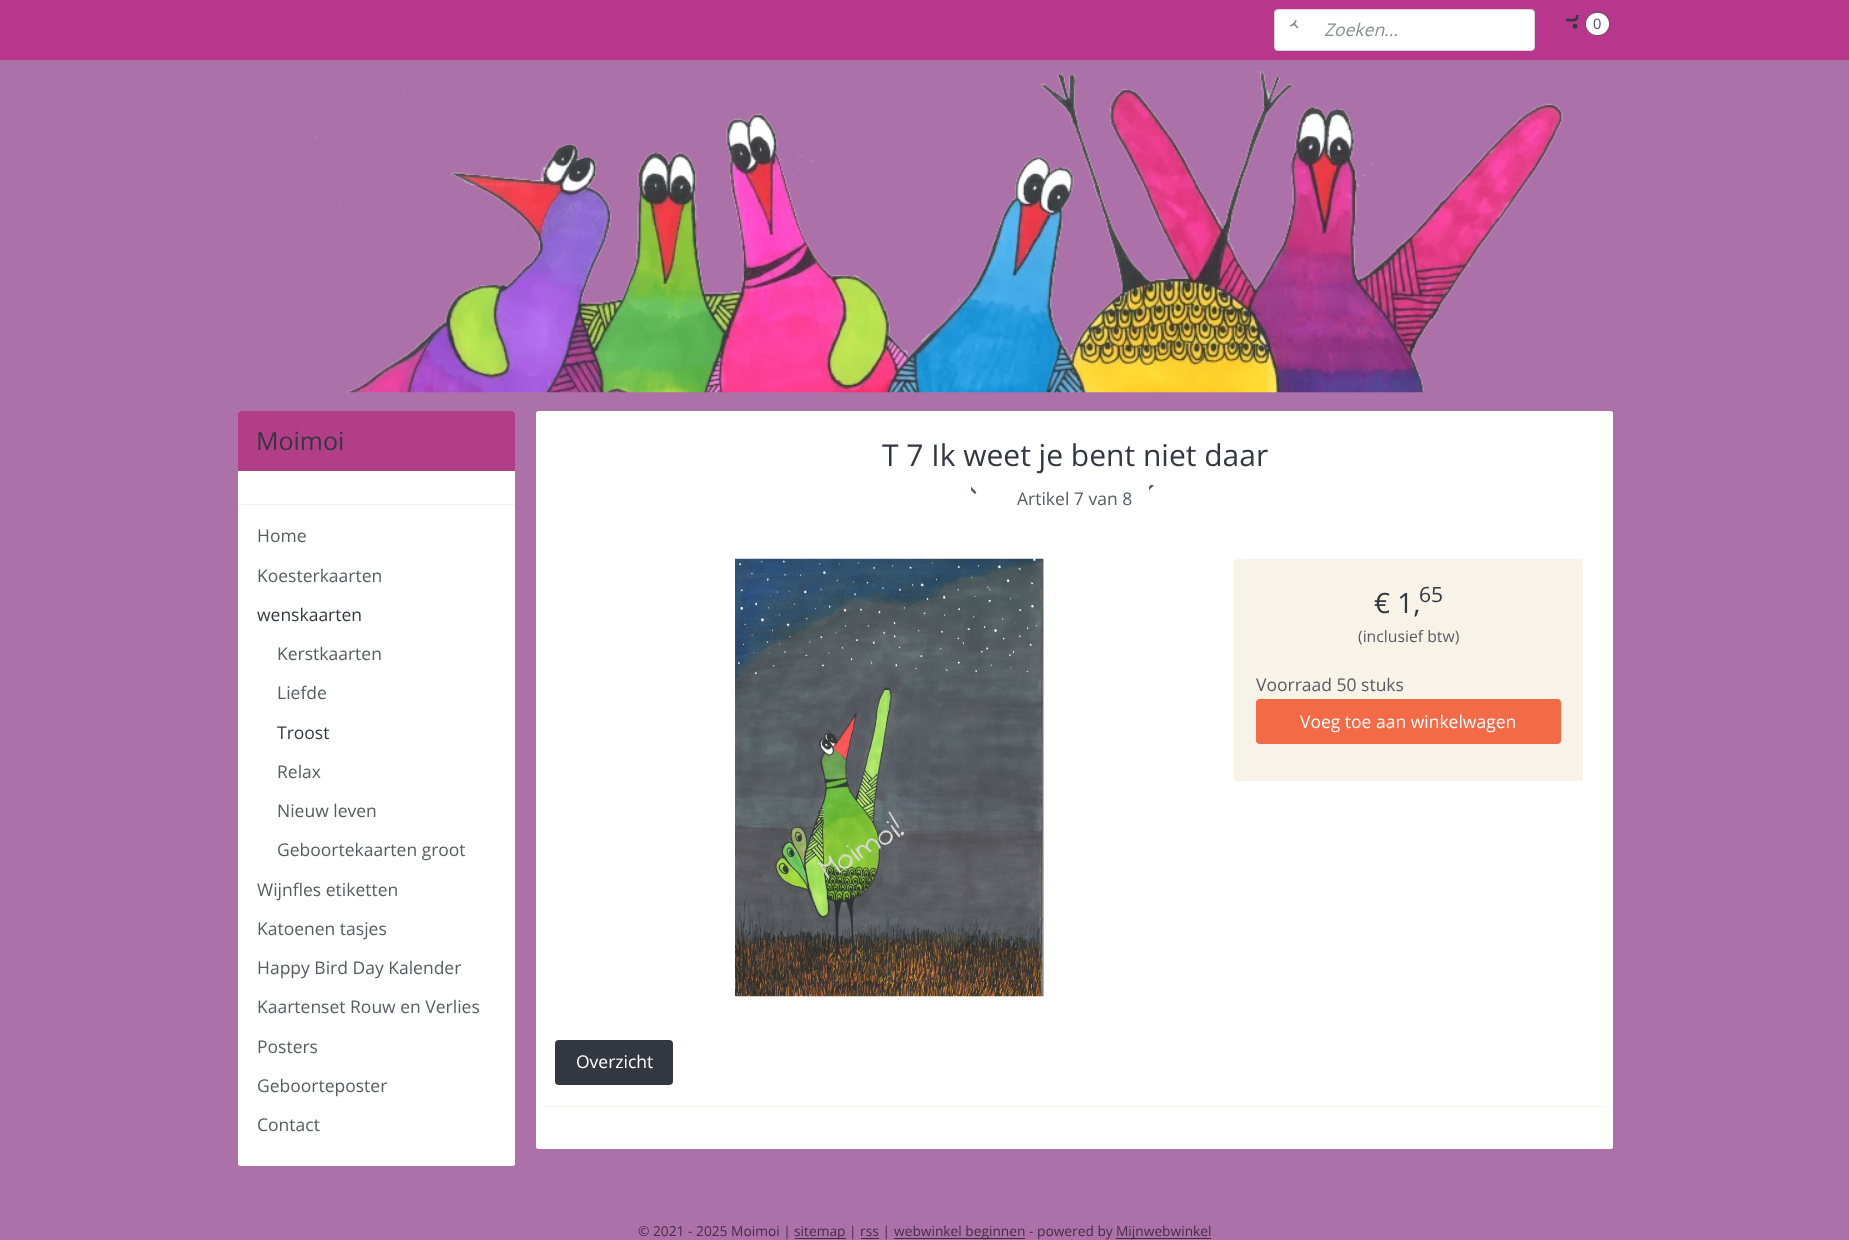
<svg xmlns="http://www.w3.org/2000/svg" width="1849" height="1240" viewBox="0 0 1849 1240">
  <rect width="100%" height="100%" fill="#ad71a9"/>
  <path d="M0 0h1849v60H0z" fill="#b8378d"/>
  <rect x="1274.5" y="9.5" width="260" height="41" rx="3.5" fill="#fff" stroke="#d3d5d9"/>
  <image x="1290" y="20" width="9" height="9" href="img/1.png"/>
  <image x="1566" y="15" width="13" height="14" href="img/2.png"/>
  <circle cx="1597.5" cy="23.5" r="12" fill="none" stroke="#575b62"/>
  <rect x="1586" y="13" width="23" height="22" rx="11" fill="#fff"/>
  <image x="299" y="71" width="1264" height="322" href="img/3.png"/>
  <rect x="238" y="411" width="277" height="755" rx="2.5" fill="#fff"/>
  <path d="M240.5 411H512.5C514 411 515 412 515 413.5V471H238V413.5C238 412 239 411 240.5 411Z" fill="#b33e88"/>
  <path d="M238 504h277v1H238z" fill="#f7f3e9"/>
  <rect x="536" y="411" width="1077" height="738" rx="2.5" fill="#fff"/>
  <image x="971" y="486" width="6" height="8" href="img/4.png"/>
  <image x="1149" y="485" width="5" height="6" href="img/5.png"/>
  <image x="735" y="558" width="309" height="439" href="img/6.png"/>
  <rect x="1234" y="559" width="349" height="222" rx="2.5" fill="#f7f3e9"/>
  <rect x="1256" y="699" width="305" height="45" rx="4" fill="#f36a46"/>
  <rect x="555" y="1040" width="118" height="45" rx="4" fill="#333740"/>
  <path d="M545 1106h1060v1H545z" fill="#f7f3e9"/>
  <path d="M795 1238h51v1H795z" fill="#452d44"/>
  <path d="M894 1238h131v1H894z" fill="#452d44"/>
  <path d="M1116 1238h95v1H1116z" fill="#452d44"/>
  <path d="M861 1238h18v1H861z" fill="#452d44"/>
  <text x="1324" y="36" font-family="Open Sans" font-size="17.5" font-style="italic" fill="#898c91">Zoeken...</text>
  <text x="1593" y="29" font-family="Liberation Sans" font-size="15" fill="#575b62">0</text>
  <text x="256" y="450" font-family="Open Sans" font-size="25" fill="#333740">Moimoi</text>
  <g font-family="Open Sans" font-size="17.5" fill="#575b62">
    <text x="257" y="542">Home</text>
    <text x="257" y="582">Koesterkaarten</text>
  </g>
  <text x="257" y="621" font-family="Open Sans" font-size="17.5" fill="#333740">wenskaarten</text>
  <g font-family="Open Sans" font-size="17.5" fill="#575b62">
    <text x="277" y="660">Kerstkaarten</text>
    <text x="277" y="699">Liefde</text>
  </g>
  <text x="277" y="739" font-family="Open Sans" font-size="17.5" fill="#333740">Troost</text>
  <g font-family="Open Sans" font-size="17.5" fill="#575b62">
    <text x="277" y="778">Relax</text>
    <text x="277" y="817">Nieuw leven</text>
    <text x="277" y="856">Geboortekaarten groot</text>
    <text x="257" y="896">Wijnfles etiketten</text>
    <text x="257" y="935">Katoenen tasjes</text>
    <text x="257" y="974">Happy Bird Day Kalender</text>
    <text x="257" y="1013">Kaartenset Rouw en Verlies</text>
    <text x="257" y="1053">Posters</text>
    <text x="257" y="1092">Geboorteposter</text>
    <text x="257" y="1131">Contact</text>
  </g>
  <text x="882" y="466" font-family="Open Sans" font-size="30" fill="#333740">T 7 Ik weet je bent niet daar</text>
  <text x="1017" y="505" font-family="Open Sans" font-size="17.5" fill="#575b62">Artikel 7 van 8</text>
  <text x="1374" y="613" font-family="Open Sans" font-size="28" fill="#333740">€ 1,</text>
  <text x="1419" y="602" font-family="Open Sans" font-size="21" fill="#333740">65</text>
  <text x="1358" y="642" font-family="Open Sans" font-size="15.75" fill="#575b62">(inclusief btw)</text>
  <text x="1256" y="691" font-family="Open Sans" font-size="17.5" fill="#575b62">Voorraad 50 stuks</text>
  <g font-family="Open Sans" font-size="17.5" fill="#fff">
    <text x="1300" y="728">Voeg toe aan winkelwagen</text>
    <text x="576" y="1068">Overzicht</text>
  </g>
  <g font-family="Open Sans" font-size="13.75" fill="#452d44">
    <text x="638" y="1236">© 2021 - 2025 Moimoi |</text>
    <text x="794" y="1236">sitemap</text>
    <text x="849" y="1236">| rss |</text>
    <text x="894" y="1236">webwinkel beginnen</text>
    <text x="1029" y="1236">- powered by</text>
    <text x="1116" y="1236">Mijnwebwinkel</text>
  </g>
</svg>
